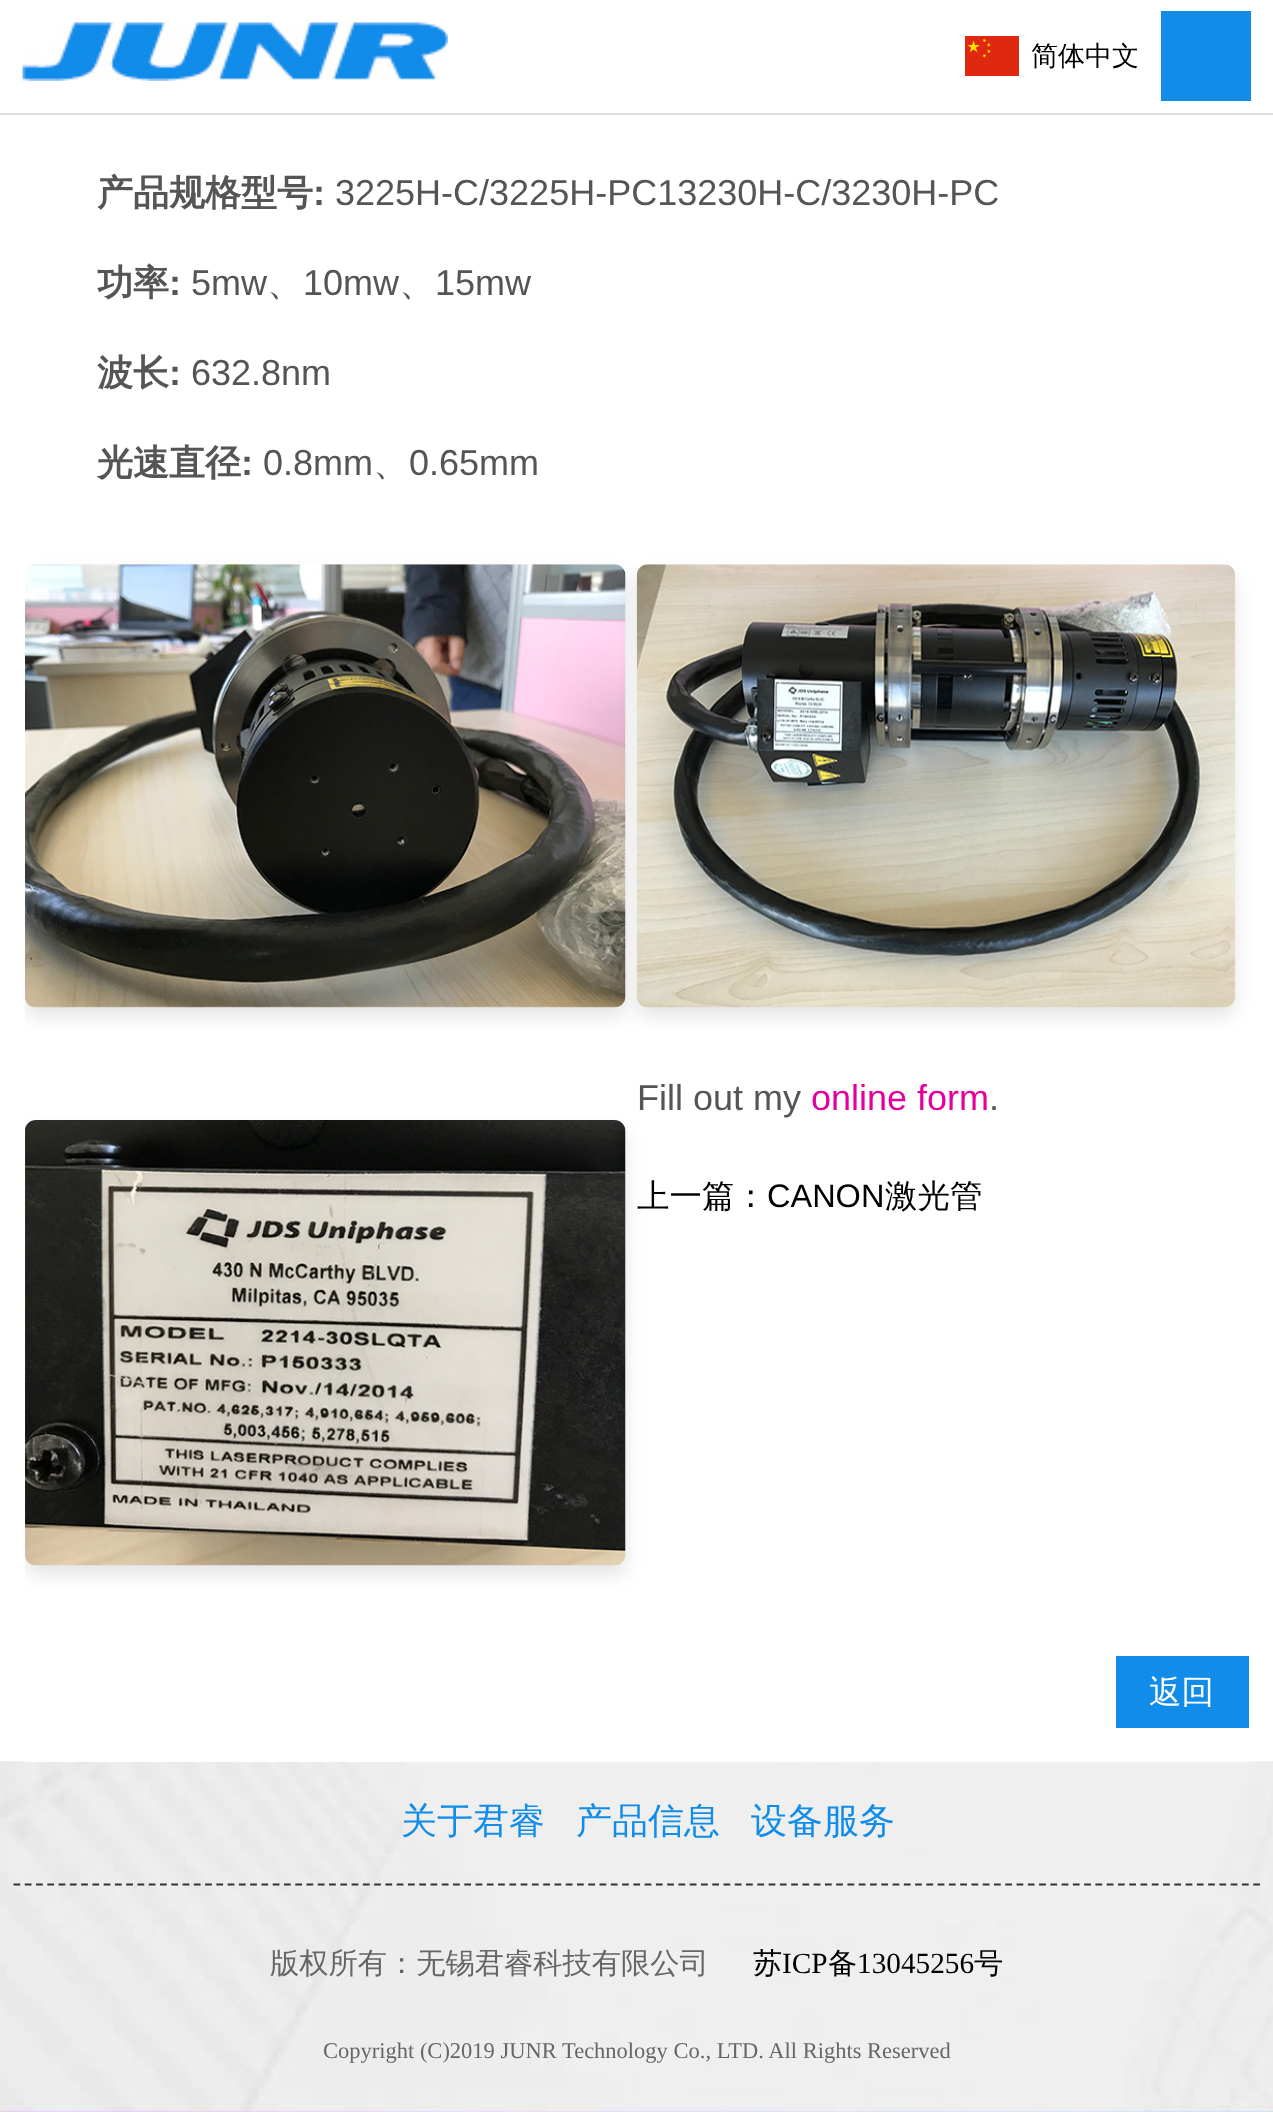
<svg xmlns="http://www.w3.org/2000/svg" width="1273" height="2112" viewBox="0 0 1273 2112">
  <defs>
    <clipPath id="clip1"><path d="M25 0h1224v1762H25z"/></clipPath>
  </defs>
  <rect width="100%" height="100%" fill="#fff"/>
  <image x="965" y="36" width="54" height="40" href="img/1.png"/>
  <path d="M0 113h1273v2H0z" fill="#ddd"/>
  <image x="22" y="22" width="426" height="59" href="img/2.png"/>
  <path d="M1161 11h90v90H1161z" fill="#118ce9"/>
  <image x="0" y="1761" width="1273" height="351" href="img/6.png"/>
  <path d="M25 1761h1224v1H25z" fill="#fff"/>
  <g clip-path="url(#clip1)">
    <rect x="25" y="574" width="601" height="443" rx="11" fill="#0000001a" filter="blur(9px)"/>
  </g>
  <image x="25" y="564" width="601" height="444" href="img/3.png"/>
  <rect x="637" y="574" width="598" height="443" rx="11" fill="#0000001a" filter="blur(9px)"/>
  <image x="636" y="564" width="600" height="444" href="img/4.png"/>
  <g clip-path="url(#clip1)">
    <rect x="25" y="1130" width="601" height="445" rx="11" fill="#0000001a" filter="blur(9px)"/>
  </g>
  <image x="25" y="1120" width="601" height="446" href="img/5.png"/>
  <path d="M1116 1656h133v72H1116z" fill="#118ce9"/>
  <path d="M13.5 1884.5H1260" fill="none" stroke="#333" stroke-width="2.2" stroke-dasharray="6.75 4.52"/>
  <text x="1031" y="65" font-family="WenQuanYi Zen Hei" font-size="27" font-weight="500" fill="#000">简体中文</text>
  <text x="97" y="205" font-family="WenQuanYi Zen Hei" font-size="36" font-weight="bold" fill="#555">产品规格型号</text>
  <text x="313" y="205" font-family="Liberation Sans" font-size="36" font-weight="bold" fill="#555">:</text>
  <text x="335" y="205" font-family="Liberation Sans" font-size="36" fill="#555">3225H-C/3225H-PC13230H-C/3230H-PC</text>
  <text x="97" y="295" font-family="WenQuanYi Zen Hei" font-size="36" font-weight="bold" fill="#555">功率</text>
  <text x="169" y="295" font-family="Liberation Sans" font-size="36" font-weight="bold" fill="#555">:</text>
  <g font-family="Liberation Sans" font-size="36" fill="#555">
    <text x="191" y="295">5mw</text>
    <text x="303" y="295">10mw</text>
    <text x="435" y="295">15mw</text>
  </g>
  <g font-family="WenQuanYi Zen Hei" font-size="36" font-weight="500" fill="#555">
    <text x="267" y="295">、</text>
    <text x="399" y="295">、</text>
  </g>
  <text x="97" y="385" font-family="WenQuanYi Zen Hei" font-size="36" font-weight="bold" fill="#555">波长</text>
  <text x="169" y="385" font-family="Liberation Sans" font-size="36" font-weight="bold" fill="#555">:</text>
  <text x="191" y="385" font-family="Liberation Sans" font-size="36" fill="#555">632.8nm</text>
  <text x="97" y="475" font-family="WenQuanYi Zen Hei" font-size="36" font-weight="bold" fill="#555">光速直径</text>
  <text x="241" y="475" font-family="Liberation Sans" font-size="36" font-weight="bold" fill="#555">:</text>
  <g font-family="Liberation Sans" font-size="36" fill="#555">
    <text x="263" y="475">0.8mm</text>
    <text x="409" y="475">0.65mm</text>
  </g>
  <text x="373" y="475" font-family="WenQuanYi Zen Hei" font-size="36" font-weight="500" fill="#555">、</text>
  <text x="637" y="1110" font-family="Liberation Sans" font-size="36" fill="#555">Fill out my</text>
  <text x="811" y="1110" font-family="Liberation Sans" font-size="36" fill="#e4019b">online form</text>
  <text x="989" y="1110" font-family="Liberation Sans" font-size="36" fill="#555">.</text>
  <text x="637" y="1207" font-family="WenQuanYi Zen Hei" font-size="32.5" font-weight="500" fill="#000">上一篇：</text>
  <text x="767" y="1207" font-family="Liberation Sans" font-size="32.5" fill="#000">CANON</text>
  <text x="885" y="1207" font-family="WenQuanYi Zen Hei" font-size="32.5" font-weight="500" fill="#000">激光管</text>
  <text x="1149" y="1703" font-family="WenQuanYi Zen Hei" font-size="32.5" font-weight="500" fill="#fff">返回</text>
  <g font-family="WenQuanYi Zen Hei" font-size="36" font-weight="500" fill="#118ce9">
    <text x="401" y="1833">关于君睿</text>
    <text x="576" y="1833">产品信息</text>
    <text x="751" y="1833">设备服务</text>
  </g>
  <text x="270" y="1973" font-family="WenQuanYi Zen Hei" font-size="29.25" font-weight="500" fill="#666">版权所有：无锡君睿科技有限公司</text>
  <text x="753" y="1973" font-family="WenQuanYi Zen Hei" font-size="29.25" font-weight="500" fill="#000">苏</text>
  <text x="782" y="1973" font-family="Liberation Serif" font-size="29.25" fill="#000">ICP</text>
  <text x="828" y="1973" font-family="WenQuanYi Zen Hei" font-size="29.25" font-weight="500" fill="#000">备</text>
  <text x="857" y="1973" font-family="Liberation Serif" font-size="29.25" fill="#000">13045256</text>
  <text x="974" y="1973" font-family="WenQuanYi Zen Hei" font-size="29.25" font-weight="500" fill="#000">号</text>
  <text x="323" y="2058" font-family="Liberation Serif" font-size="22.5" fill="#666">Copyright (C)2019 JUNR Technology Co., LTD. All Rights Reserved</text>
</svg>
